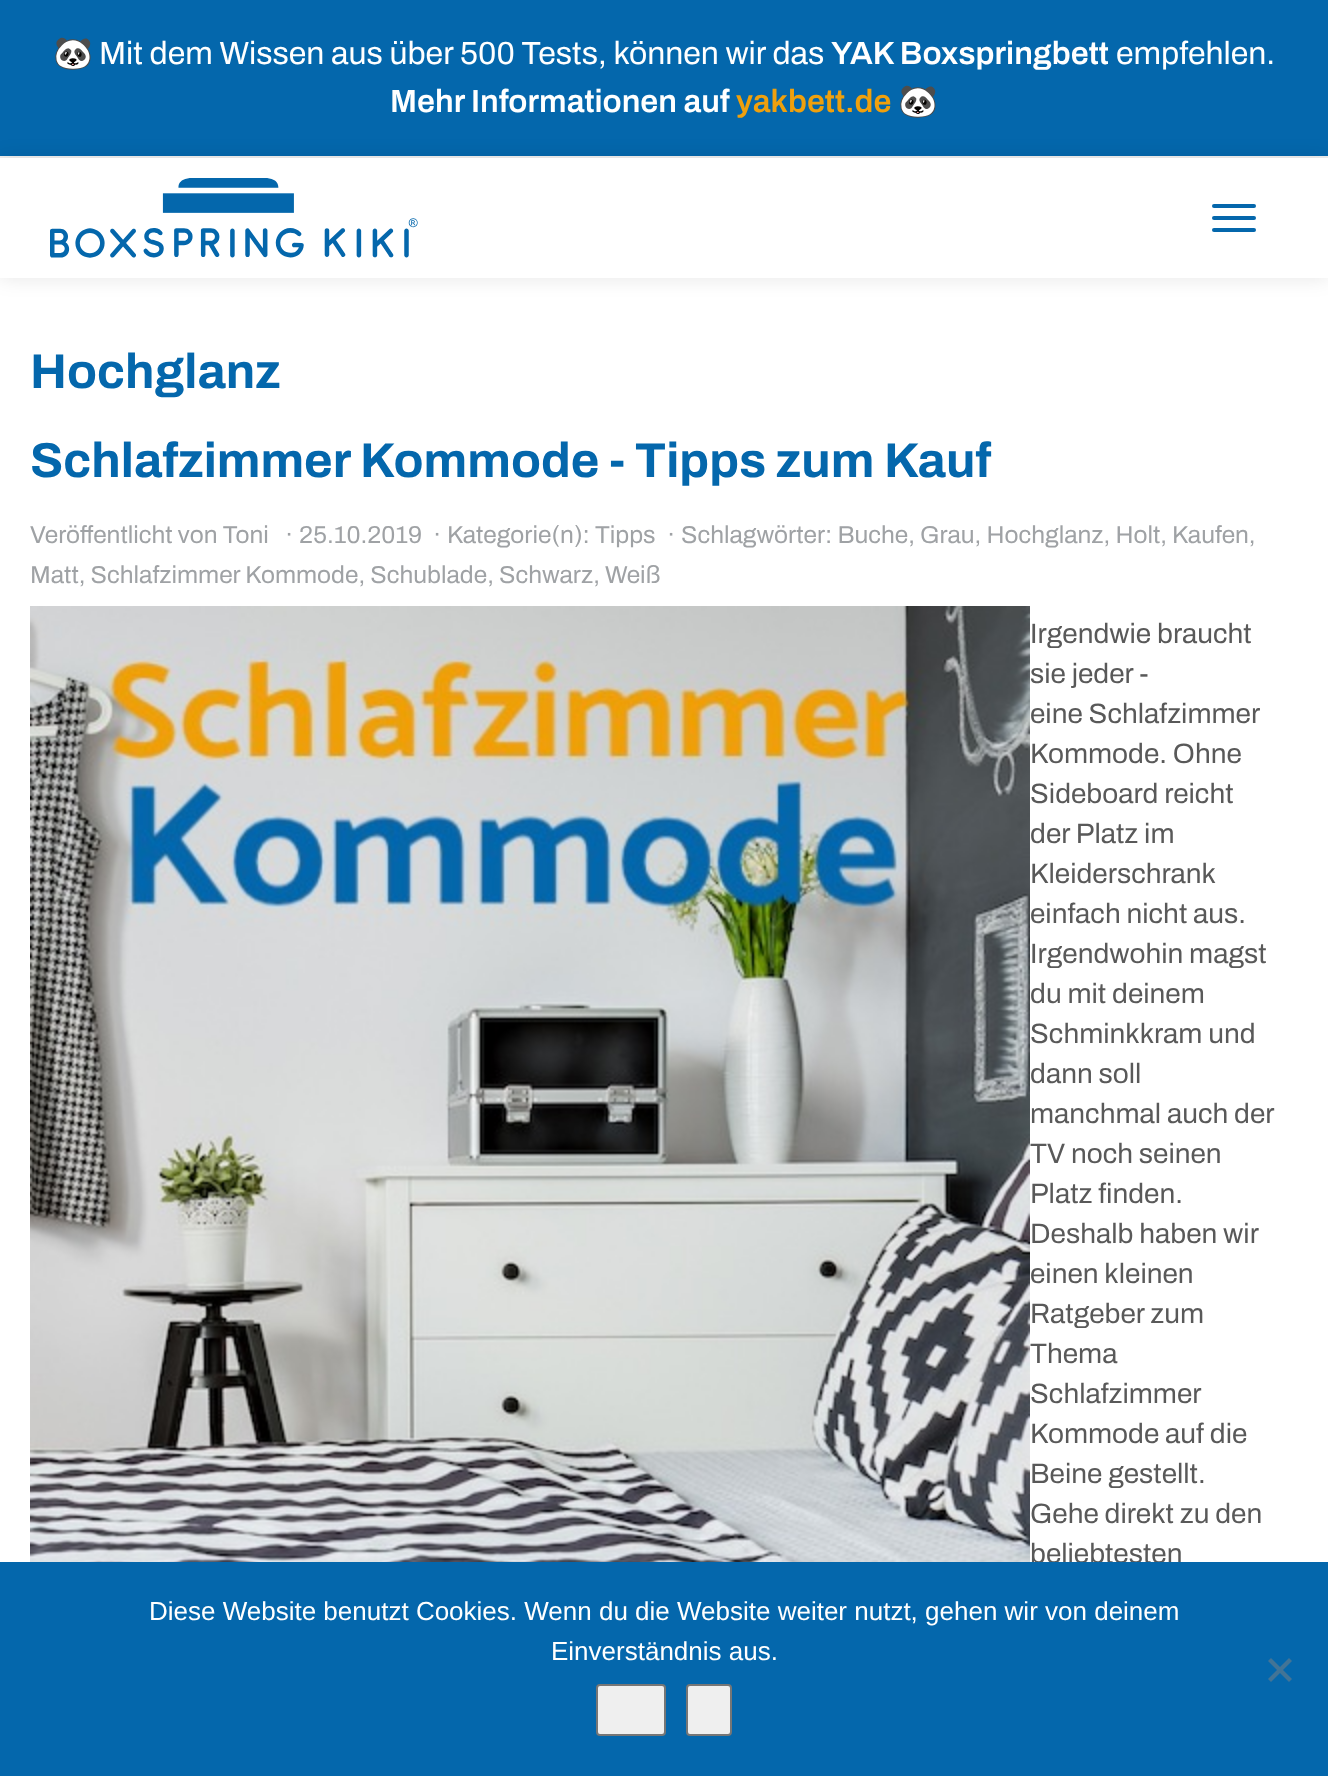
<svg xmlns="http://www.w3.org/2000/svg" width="1328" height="1776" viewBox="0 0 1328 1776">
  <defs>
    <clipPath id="clip1"><path d="M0 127H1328V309H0ZM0 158H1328V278H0Z" clip-rule="evenodd"/></clipPath>
  </defs>
  <rect width="100%" height="100%" fill="#fff"/>
  <path d="M0 0h1328v156H0z" fill="#0467ac"/>
  <path d="M0 156h1328v2H0z" fill="#f0f0f0"/>
  <g clip-path="url(#clip1)">
    <path d="M0 158h1328v120H0z" fill="#0000001a" filter="blur(10px)"/>
  </g>
  <image x="50" y="178" width="368" height="80" href="img/1.png"/>
  <rect x="1212" y="204" width="44" height="4" rx="2" fill="#0467ac"/>
  <rect x="1212" y="216" width="44" height="4" rx="2" fill="#0467ac"/>
  <rect x="1212" y="228" width="44" height="4" rx="2" fill="#0467ac"/>
  <image x="30" y="606" width="1000" height="956" href="img/2.png"/>
  <text x="53" y="64" font-family="Noto Color Emoji" font-size="32" fill="#fff">🐼</text>
  <text x="99" y="64" font-family="Archivo" font-size="32" fill="#fff">Mit dem Wissen aus über 500 Tests, können wir das</text>
  <text x="831" y="64" font-family="Archivo" font-size="32" font-weight="600" fill="#fff">YAK Boxspringbett</text>
  <text x="1116" y="64" font-family="Archivo" font-size="32" fill="#fff">empfehlen.</text>
  <text x="390" y="112" font-family="Archivo" font-size="32" font-weight="600" fill="#fff">Mehr Informationen auf</text>
  <text x="736" y="112" font-family="Archivo" font-size="32" font-weight="600" fill="#efa00d">yakbett.de</text>
  <text x="898" y="112" font-family="Noto Color Emoji" font-size="32" fill="#fff">🐼</text>
  <g font-family="Archivo" font-size="49" font-weight="bold" fill="#0467ac">
    <text x="30" y="388">Hochglanz</text>
    <text x="30" y="477">Schlafzimmer Kommode - Tipps zum Kauf</text>
  </g>
  <g font-family="Archivo" font-size="24.5" fill="#9fa2a5">
    <text x="30" y="543">Veröffentlicht von Toni</text>
    <text x="285" y="543">·</text>
    <text x="299" y="543">25.10.2019</text>
    <text x="433" y="543">·</text>
    <text x="447" y="543">Kategorie(n): Tipps</text>
    <text x="667" y="543">·</text>
    <text x="681" y="543">Schlagwörter: Buche, Grau, Hochglanz, Holt, Kaufen,</text>
    <text x="30" y="583">Matt, Schlafzimmer Kommode, Schublade, Schwarz, Weiß</text>
  </g>
  <g font-family="Archivo" font-size="28" fill="#595959">
    <text x="1030" y="643">Irgendwie braucht</text>
    <text x="1030" y="683">sie jeder -</text>
    <text x="1030" y="723">eine Schlafzimmer</text>
    <text x="1030" y="763">Kommode. Ohne</text>
    <text x="1030" y="803">Sideboard reicht</text>
    <text x="1030" y="843">der Platz im</text>
    <text x="1030" y="883">Kleiderschrank</text>
    <text x="1030" y="923">einfach nicht aus.</text>
    <text x="1030" y="963">Irgendwohin magst</text>
    <text x="1030" y="1003">du mit deinem</text>
    <text x="1030" y="1043">Schminkkram und</text>
    <text x="1030" y="1083">dann soll</text>
    <text x="1030" y="1123">manchmal auch der</text>
    <text x="1030" y="1163">TV noch seinen</text>
    <text x="1030" y="1203">Platz finden.</text>
    <text x="1030" y="1243">Deshalb haben wir</text>
    <text x="1030" y="1283">einen kleinen</text>
    <text x="1030" y="1323">Ratgeber zum</text>
    <text x="1030" y="1363">Thema</text>
    <text x="1030" y="1403">Schlafzimmer</text>
    <text x="1030" y="1443">Kommode auf die</text>
    <text x="1030" y="1483">Beine gestellt.</text>
    <text x="1030" y="1523">Gehe direkt zu den</text>
    <text x="1030" y="1563">beliebtesten</text>
  </g>
  <path d="M0 1562h1328v214H0z" fill="#0467ac"/>
  <g font-family="Liberation Sans" font-size="26" fill="#fff">
    <text x="149" y="1620">Diese Website benutzt Cookies. Wenn du die Website weiter nutzt, gehen wir von deinem</text>
    <text x="551" y="1660">Einverständnis aus.</text>
  </g>
  <path d="M1289 1658L1292 1661L1271 1682L1268 1679Z" fill="#427496"/>
  <path d="M1268 1661L1271 1658L1292 1679L1289 1682Z" fill="#427496"/>
  <rect x="597" y="1685" width="68" height="50" rx="3" fill="#efefef" stroke="#767676" stroke-width="2"/>
  <rect x="687" y="1685" width="44" height="50" rx="3" fill="#efefef" stroke="#767676" stroke-width="2"/>
</svg>
